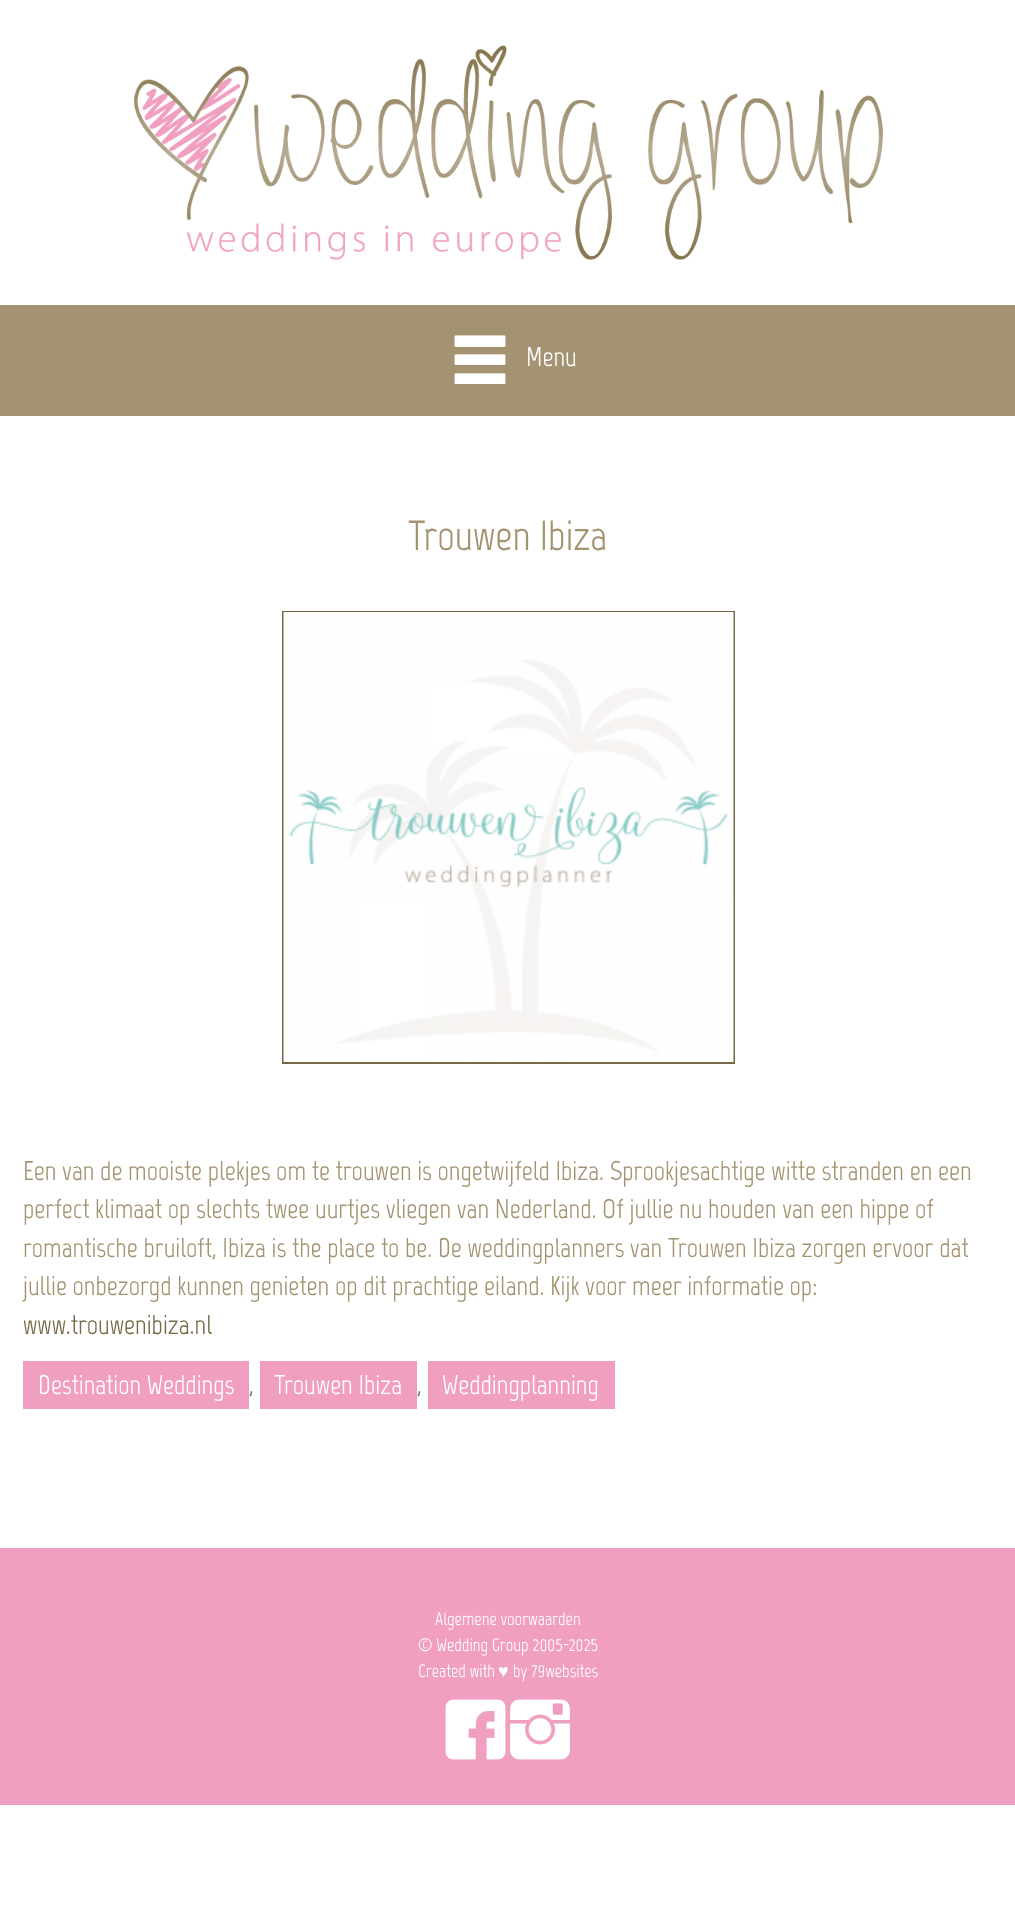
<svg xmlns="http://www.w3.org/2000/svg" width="1015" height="1924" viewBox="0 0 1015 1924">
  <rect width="100%" height="100%" fill="#fff"/>
  <image x="134" y="45" width="749" height="215" href="img/1.png"/>
  <path d="M0 305h1015v111H0z" fill="#a39371"/>
  <image x="454" y="335" width="52" height="49" href="img/2.png"/>
  <path d="M283 612h451v451H283z" fill="none" stroke="#776946" stroke-width="2"/>
  <image x="283" y="612" width="451" height="450" href="img/3.png"/>
  <path d="M23 1361h226v48H23z" fill="#f19fc1"/>
  <path d="M260 1361h157v48H260z" fill="#f19fc1"/>
  <path d="M428 1361h187v48H428z" fill="#f19fc1"/>
  <path d="M0 1548h1015v257H0z" fill="#f19fc1"/>
  <image x="445" y="1699" width="61" height="61" href="img/4.png"/>
  <image x="510" y="1699" width="60" height="61" href="img/5.png"/>
  <text x="526" y="366" font-family="Marvel" font-size="27" fill="#fff">Menu</text>
  <text x="408" y="550" font-family="Marvel" font-size="42" fill="#a39371">Trouwen Ibiza</text>
  <g font-family="Marvel" font-size="27" fill="#a39371">
    <text x="23" y="1180">Een van de mooiste plekjes om te trouwen is ongetwijfeld Ibiza. Sprookjesachtige witte stranden en een</text>
    <text x="23" y="1218">perfect klimaat op slechts twee uurtjes vliegen van Nederland. Of jullie nu houden van een hippe of</text>
    <text x="23" y="1257">romantische bruiloft, Ibiza is the place to be. De weddingplanners van Trouwen Ibiza zorgen ervoor dat</text>
    <text x="23" y="1295">jullie onbezorgd kunnen genieten op dit prachtige eiland. Kijk voor meer informatie op:</text>
  </g>
  <text x="23" y="1334" font-family="Marvel" font-size="27" fill="#776946">www.trouwenibiza.nl</text>
  <text x="38" y="1394" font-family="Marvel" font-size="27" fill="#fff">Destination Weddings</text>
  <text x="249" y="1394" font-family="Marvel" font-size="27" fill="#777">,</text>
  <text x="274" y="1394" font-family="Marvel" font-size="27" fill="#fff">Trouwen Ibiza</text>
  <text x="417" y="1394" font-family="Marvel" font-size="27" fill="#777">,</text>
  <text x="442" y="1394" font-family="Marvel" font-size="27" fill="#fff">Weddingplanning</text>
  <g font-family="Marvel" font-size="18" fill="#fff">
    <text x="435" y="1625">Algemene voorwaarden</text>
    <text x="418" y="1651">© Wedding Group 2005-2025</text>
    <text x="418" y="1677">Created with</text>
  </g>
  <text x="498" y="1677" font-family="Liberation Sans" font-size="18" fill="#fff">♥︎</text>
  <text x="513" y="1677" font-family="Marvel" font-size="18" fill="#fff">by 79websites</text>
</svg>
